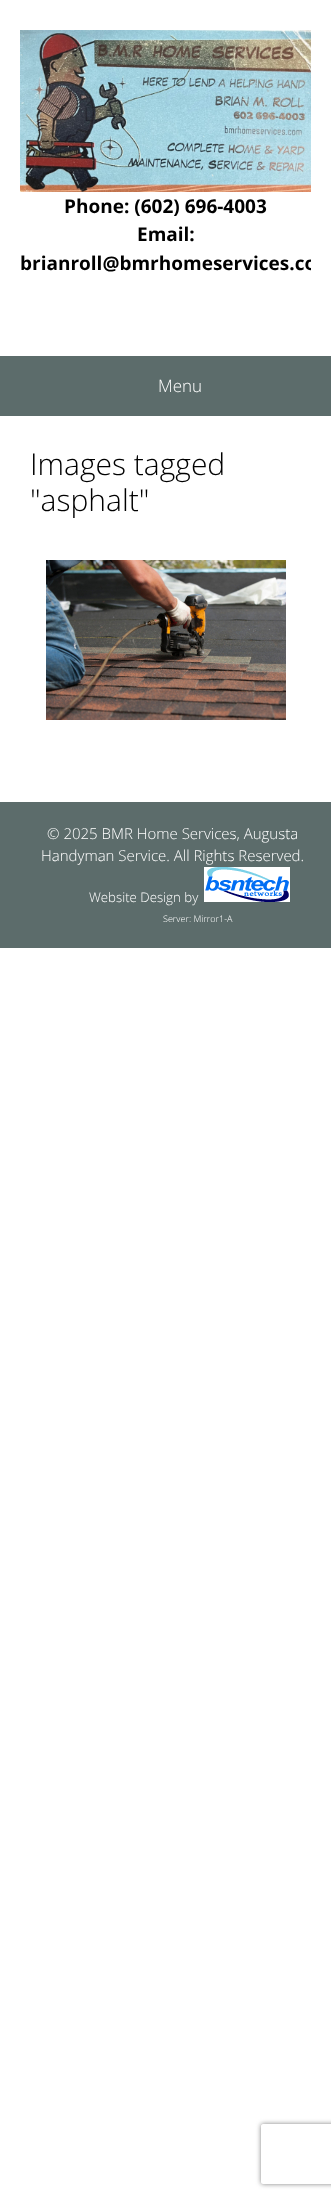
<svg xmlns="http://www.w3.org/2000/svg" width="331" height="2198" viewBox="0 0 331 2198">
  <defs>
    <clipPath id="clip1"><rect x="20" y="192" width="291" height="114"/></clipPath>
    <clipPath id="clip2"><path d="M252 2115H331V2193H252ZM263 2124H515C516 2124 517 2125 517 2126V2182C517 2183 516 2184 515 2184H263C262 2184 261 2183 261 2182V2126C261 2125 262 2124 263 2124Z" clip-rule="evenodd"/></clipPath>
  </defs>
  <rect width="100%" height="100%" fill="rgb(255,255,255)"/>
  <image x="20" y="30" width="291" height="162" href="pic1.png"/>
  <g font-family="Open Sans" font-size="19" font-weight="bold" fill="rgb(0,0,0)">
    <text x="64" y="213">Phone: (602) 696-4003</text>
    <text x="137" y="241">Email:</text>
  </g>
  <g clip-path="url(#clip1)">
    <text x="20" y="270" font-family="Open Sans" font-size="19" font-weight="bold" fill="rgb(0,0,0)">brianroll@bmrhomeservices.co</text>
  </g>
  <rect x="0" y="356" width="331" height="60" fill="rgb(92,108,107)"/>
  <text x="158" y="392" font-family="Open Sans" font-size="17" font-weight="300" fill="rgb(255,255,255)">Menu</text>
  <g font-family="Open Sans" font-size="30" font-weight="300" fill="rgb(0,0,0)">
    <text>
      <tspan x="30" y="475">Images tagged</tspan>
      <tspan x="30" y="511">"asphalt"</tspan>
    </text>
  </g>
  <image x="46" y="560" width="240" height="160" href="pic2.png"/>
  <rect x="0" y="802" width="331" height="146" fill="rgb(92,108,107)"/>
  <g font-family="Open Sans" font-size="15" font-weight="300" fill="rgb(255,255,255)">
    <text x="47" y="839">© 2025 BMR Home Services, Augusta</text>
    <text x="41" y="861">Handyman Service. All Rights Reserved.</text>
  </g>
  <text x="89" y="902" font-family="Open Sans" font-size="13.25" font-weight="300" fill="rgb(255,255,255)">Website Design by</text>
  <image x="204" y="867" width="86" height="35" href="pic3.png"/>
  <text x="163" y="922" font-family="Open Sans" font-size="9" font-weight="300" fill="rgb(255,255,255)">Server: Mirror1-A</text>
  <g clip-path="url(#clip2)">
    <rect x="261" y="2124" width="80" height="60" rx="2" fill="rgb(128,128,128)" filter="blur(2.5px)"/>
  </g>
</svg>
